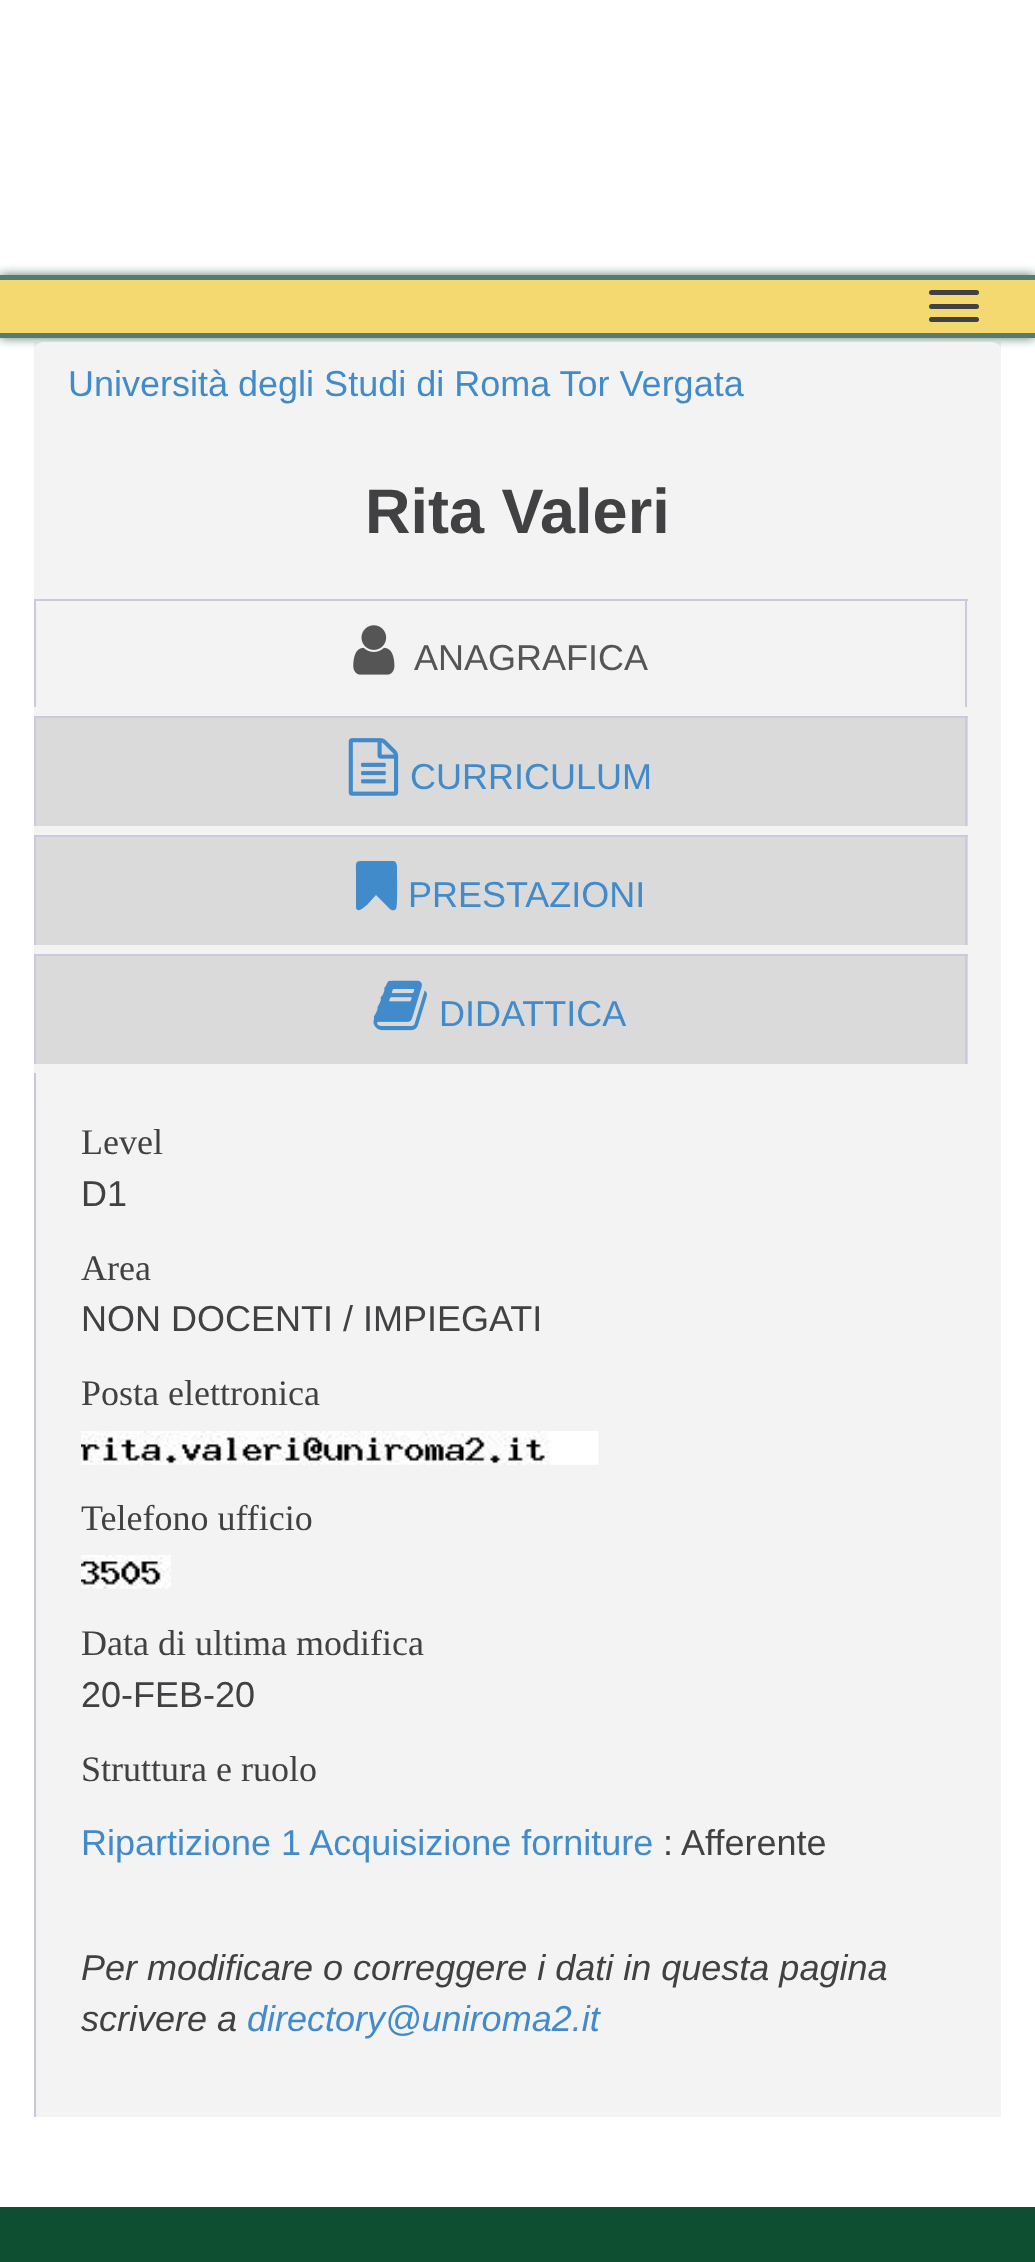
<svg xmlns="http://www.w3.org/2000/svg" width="1035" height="2262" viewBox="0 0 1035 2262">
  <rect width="100%" height="100%" fill="rgb(255,255,255)"/>
  <rect x="34" y="342" width="967" height="1775" fill="rgb(243,243,243)"/>
  <rect x="0" y="275" width="1035" height="63" fill="rgb(87,124,109)" filter="blur(5.5px)"/>
  <rect x="0" y="280" width="1035" height="53" fill="rgb(244,217,113)"/>
  <rect x="0" y="275" width="1035" height="5" fill="rgb(87,124,109)"/>
  <rect x="0" y="333" width="1035" height="5" fill="rgb(87,124,109)"/>
  <rect x="929" y="290" width="50" height="5" rx="2.5" fill="rgb(65,64,66)"/>
  <rect x="929" y="304" width="50" height="5" rx="2.5" fill="rgb(65,64,66)"/>
  <rect x="929" y="317" width="50" height="5" rx="2.5" fill="rgb(65,64,66)"/>
  <rect x="34" y="342" width="967" height="88" rx="9" fill="rgb(243,243,243)"/>
  <text x="68" y="396" font-family="Liberation Sans" font-size="36" fill="rgb(66,139,202)">Università degli Studi di Roma Tor Vergata</text>
  <text x="365" y="533" font-family="Liberation Sans" font-size="63" font-weight="bold" fill="rgb(65,64,66)">Rita Valeri</text>
  <rect x="34" y="599" width="934" height="2" fill="rgb(207,199,221)"/>
  <rect x="965" y="599" width="2" height="108" fill="rgb(207,199,221)"/>
  <rect x="34" y="599" width="2" height="108" fill="rgb(207,199,221)"/>
  <image x="353" y="625" width="42" height="50" href="pic1.png"/>
  <text x="414" y="670" font-family="Liberation Sans" font-size="36" fill="rgb(85,85,85)">ANAGRAFICA</text>
  <rect x="36" y="718" width="932" height="108" fill="rgb(218,218,218)"/>
  <rect x="34" y="716" width="934" height="2" fill="rgb(207,199,221)"/>
  <rect x="965" y="716" width="2" height="110" fill="rgb(207,199,221)"/>
  <rect x="34" y="716" width="2" height="110" fill="rgb(207,199,221)"/>
  <image x="348" y="738" width="51" height="58" href="pic2.png"/>
  <text x="410" y="789" font-family="Liberation Sans" font-size="36" fill="rgb(66,139,202)">CURRICULUM</text>
  <rect x="36" y="837" width="932" height="108" fill="rgb(218,218,218)"/>
  <rect x="34" y="835" width="934" height="2" fill="rgb(207,199,221)"/>
  <rect x="965" y="835" width="2" height="110" fill="rgb(207,199,221)"/>
  <rect x="34" y="835" width="2" height="110" fill="rgb(207,199,221)"/>
  <path d="M393 861H365C355 861 356 861 356 872V908C358 914 365 906 367 905L376 895L386 905C388 907 392 913 396 909C398 907 397 877 397 872C397 869 398 861 393 861Z" fill="rgb(66,139,202)"/>
  <text x="408" y="907" font-family="Liberation Sans" font-size="36" fill="rgb(66,139,202)">PRESTAZIONI</text>
  <rect x="36" y="956" width="932" height="108" fill="rgb(218,218,218)"/>
  <rect x="34" y="954" width="934" height="2" fill="rgb(207,199,221)"/>
  <rect x="965" y="954" width="2" height="110" fill="rgb(207,199,221)"/>
  <rect x="34" y="954" width="2" height="110" fill="rgb(207,199,221)"/>
  <image x="373" y="980" width="54" height="51" href="pic3.png"/>
  <text x="439" y="1026" font-family="Liberation Sans" font-size="36" fill="rgb(66,139,202)">DIDATTICA</text>
  <rect x="34" y="1073" width="2" height="1044" fill="rgb(204,197,219)"/>
  <text x="81" y="1154" font-family="Liberation Serif" font-size="36" fill="rgb(65,64,66)">Level</text>
  <text x="81" y="1206" font-family="Liberation Sans" font-size="36" fill="rgb(65,64,66)">D1</text>
  <text x="81" y="1280" font-family="Liberation Serif" font-size="36" fill="rgb(65,64,66)">Area</text>
  <text x="81" y="1331" font-family="Liberation Sans" font-size="36" fill="rgb(65,64,66)">NON DOCENTI / IMPIEGATI</text>
  <text x="81" y="1405" font-family="Liberation Serif" font-size="36" fill="rgb(65,64,66)">Posta elettronica</text>
  <image x="81" y="1431" width="518" height="34" href="pic4.png"/>
  <text x="81" y="1530" font-family="Liberation Serif" font-size="36" fill="rgb(65,64,66)">Telefono ufficio</text>
  <image x="81" y="1555" width="90" height="34" href="pic5.png"/>
  <text x="81" y="1655" font-family="Liberation Serif" font-size="36" fill="rgb(65,64,66)">Data di ultima modifica</text>
  <text x="81" y="1707" font-family="Liberation Sans" font-size="36" fill="rgb(65,64,66)">20-FEB-20</text>
  <text x="81" y="1781" font-family="Liberation Serif" font-size="36" fill="rgb(65,64,66)">Struttura e ruolo</text>
  <text x="81" y="1855" font-family="Liberation Sans" font-size="36" fill="rgb(66,139,202)">Ripartizione 1 Acquisizione forniture</text>
  <text x="663" y="1855" font-family="Liberation Sans" font-size="36" fill="rgb(65,64,66)">: Afferente</text>
  <g font-family="Liberation Sans" font-size="36" font-style="italic" fill="rgb(65,64,66)">
    <text>
      <tspan x="81" y="1980">Per modificare o correggere i dati in questa pagina</tspan>
      <tspan x="81" y="2031">scrivere a</tspan>
    </text>
  </g>
  <text x="247" y="2031" font-family="Liberation Sans" font-size="36" font-style="italic" fill="rgb(66,139,202)">directory@uniroma2.it</text>
  <rect x="0" y="2207" width="1035" height="55" fill="rgb(15,79,49)"/>
</svg>
